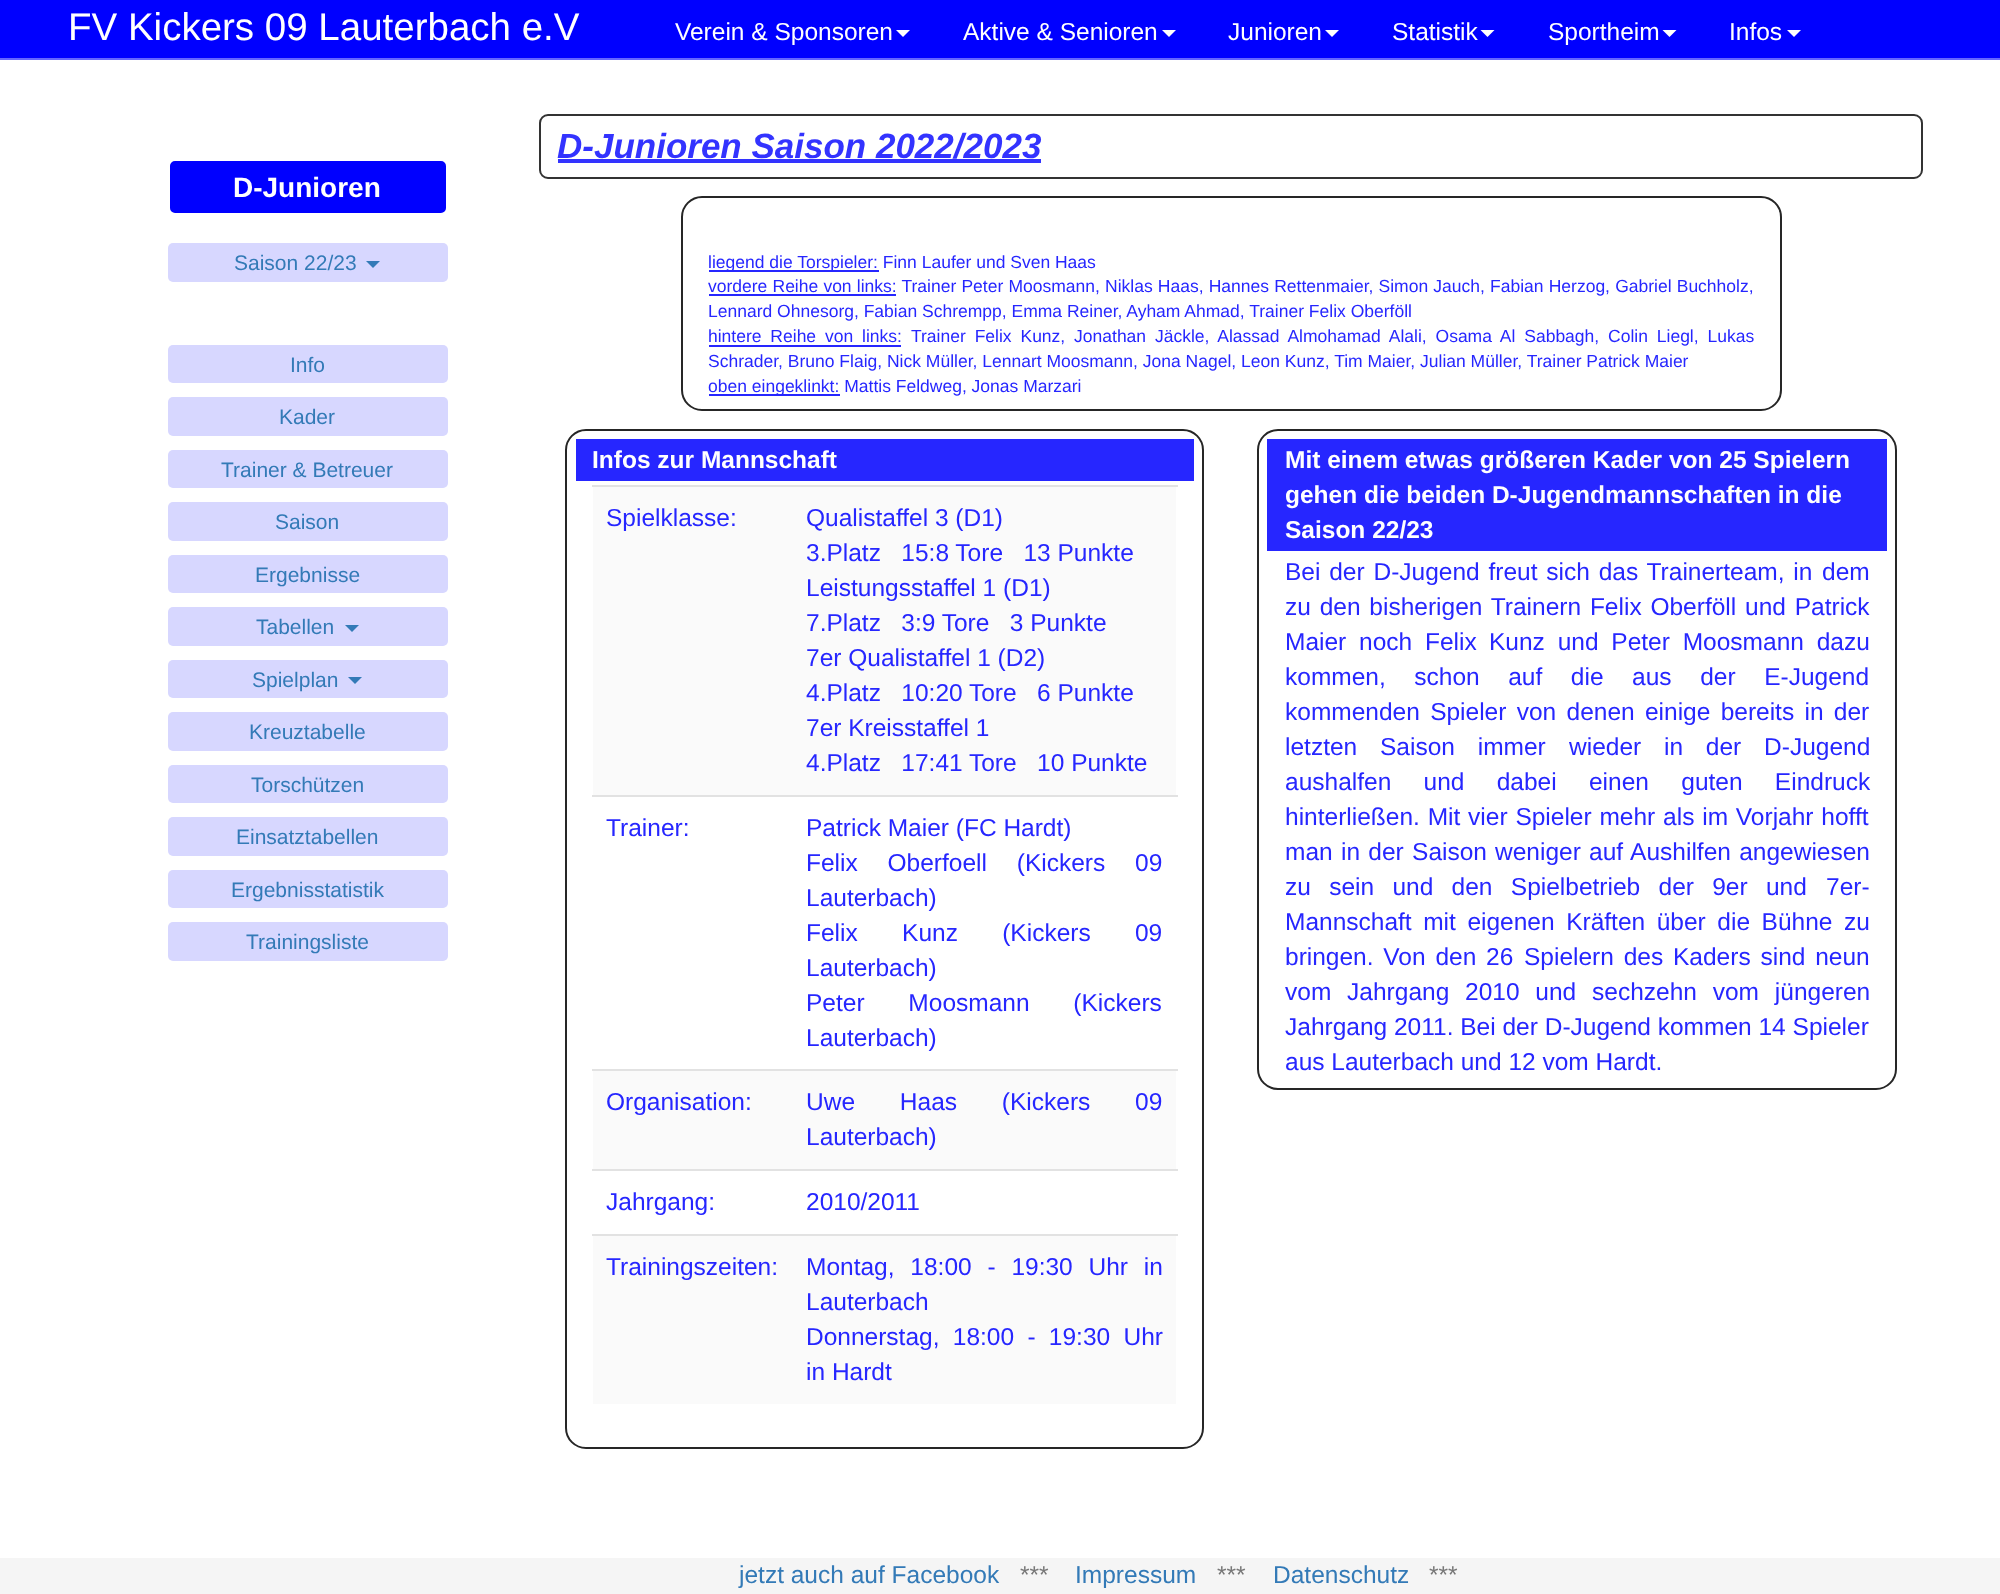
<svg xmlns="http://www.w3.org/2000/svg" width="2000" height="1594" viewBox="0 0 2000 1594">
  <rect width="100%" height="100%" fill="rgb(255,255,255)"/>
  <rect x="0" y="0" width="2000" height="58" fill="rgb(0,0,255)"/>
  <rect x="0" y="58" width="2000" height="2" fill="rgb(102,102,255)"/>
  <text x="68" y="40" font-family="Liberation Sans" font-size="38.5" fill="rgb(255,255,255)">FV Kickers 09 Lauterbach e.V</text>
  <text x="675" y="40" font-family="Liberation Sans" font-size="24.5" fill="rgb(255,255,255)">Verein &amp; Sponsoren</text>
  <path d="M896 30H910L903 37Z" fill="rgb(255,255,255)"/>
  <text x="963" y="40" font-family="Liberation Sans" font-size="24.5" fill="rgb(255,255,255)">Aktive &amp; Senioren</text>
  <path d="M1162 30H1176L1169 37Z" fill="rgb(255,255,255)"/>
  <text x="1228" y="40" font-family="Liberation Sans" font-size="24.5" fill="rgb(255,255,255)">Junioren</text>
  <path d="M1325 30H1339L1332 37Z" fill="rgb(255,255,255)"/>
  <text x="1392" y="40" font-family="Liberation Sans" font-size="24.5" fill="rgb(255,255,255)">Statistik</text>
  <path d="M1480.5 30H1494.5L1487.5 37Z" fill="rgb(255,255,255)"/>
  <text x="1548" y="40" font-family="Liberation Sans" font-size="24.5" fill="rgb(255,255,255)">Sportheim</text>
  <path d="M1662.5 30H1676.5L1669.5 37Z" fill="rgb(255,255,255)"/>
  <text x="1729" y="40" font-family="Liberation Sans" font-size="24.5" fill="rgb(255,255,255)">Infos</text>
  <path d="M1787 30H1801L1794 37Z" fill="rgb(255,255,255)"/>
  <rect x="169" y="160" width="278" height="54" rx="6" fill="rgb(0,0,255)" stroke="rgb(255,255,255)" stroke-width="2"/>
  <text x="233" y="197" font-family="Liberation Sans" font-size="28" font-weight="bold" fill="rgb(255,255,255)">D-Junioren</text>
  <rect x="168" y="243" width="280" height="39" rx="5" fill="rgb(215,215,255)"/>
  <text x="234" y="270" font-family="Liberation Sans" font-size="21" fill="rgb(51,122,183)">Saison 22/23</text>
  <path d="M366 261H380L373 268Z" fill="rgb(51,122,183)"/>
  <rect x="168" y="345" width="280" height="38" rx="5" fill="rgb(215,215,255)"/>
  <text x="290" y="372" font-family="Liberation Sans" font-size="21" fill="rgb(51,122,183)">Info</text>
  <rect x="168" y="397" width="280" height="39" rx="5" fill="rgb(215,215,255)"/>
  <text x="279" y="424" font-family="Liberation Sans" font-size="21" fill="rgb(51,122,183)">Kader</text>
  <rect x="168" y="450" width="280" height="38" rx="5" fill="rgb(215,215,255)"/>
  <text x="221" y="477" font-family="Liberation Sans" font-size="21" fill="rgb(51,122,183)">Trainer &amp; Betreuer</text>
  <rect x="168" y="502" width="280" height="39" rx="5" fill="rgb(215,215,255)"/>
  <text x="275" y="529" font-family="Liberation Sans" font-size="21" fill="rgb(51,122,183)">Saison</text>
  <rect x="168" y="555" width="280" height="38" rx="5" fill="rgb(215,215,255)"/>
  <text x="255" y="582" font-family="Liberation Sans" font-size="21" fill="rgb(51,122,183)">Ergebnisse</text>
  <rect x="168" y="607" width="280" height="39" rx="5" fill="rgb(215,215,255)"/>
  <text x="256" y="634" font-family="Liberation Sans" font-size="21" fill="rgb(51,122,183)">Tabellen</text>
  <path d="M345 625H359L352 632Z" fill="rgb(51,122,183)"/>
  <rect x="168" y="660" width="280" height="38" rx="5" fill="rgb(215,215,255)"/>
  <text x="252" y="687" font-family="Liberation Sans" font-size="21" fill="rgb(51,122,183)">Spielplan</text>
  <path d="M348 677H362L355 684Z" fill="rgb(51,122,183)"/>
  <rect x="168" y="712" width="280" height="39" rx="5" fill="rgb(215,215,255)"/>
  <text x="249" y="739" font-family="Liberation Sans" font-size="21" fill="rgb(51,122,183)">Kreuztabelle</text>
  <rect x="168" y="765" width="280" height="38" rx="5" fill="rgb(215,215,255)"/>
  <text x="251" y="792" font-family="Liberation Sans" font-size="21" fill="rgb(51,122,183)">Torschützen</text>
  <rect x="168" y="817" width="280" height="39" rx="5" fill="rgb(215,215,255)"/>
  <text x="236" y="844" font-family="Liberation Sans" font-size="21" fill="rgb(51,122,183)">Einsatztabellen</text>
  <rect x="168" y="870" width="280" height="38" rx="5" fill="rgb(215,215,255)"/>
  <text x="231" y="897" font-family="Liberation Sans" font-size="21" fill="rgb(51,122,183)">Ergebnisstatistik</text>
  <rect x="168" y="922" width="280" height="39" rx="5" fill="rgb(215,215,255)"/>
  <text x="246" y="949" font-family="Liberation Sans" font-size="21" fill="rgb(51,122,183)">Trainingsliste</text>
  <rect x="540" y="115" width="1382" height="63" rx="8" fill="none" stroke="rgb(51,51,51)" stroke-width="2"/>
  <text x="557" y="158" font-family="Liberation Sans" font-size="35" font-weight="bold" font-style="italic" fill="rgb(51,51,255)">D-Junioren Saison 2022/2023</text>
  <rect x="558" y="159" width="483" height="4" fill="rgb(51,51,255)"/>
  <rect x="682" y="197" width="1099" height="213" rx="20" fill="none" stroke="rgb(38,38,38)" stroke-width="2"/>
  <rect x="709" y="270" width="170" height="2" fill="rgb(38,38,255)"/>
  <text x="708" y="268" font-family="Liberation Sans" font-size="17.5" fill="rgb(38,38,255)">liegend die Torspieler: Finn Laufer und Sven Haas</text>
  <rect x="709" y="294" width="187" height="2" fill="rgb(38,38,255)"/>
  <g font-family="Liberation Sans" font-size="17.5" fill="rgb(38,38,255)">
    <text>
      <tspan x="708" y="292" word-spacing="0.3">vordere Reihe von links: Trainer Peter Moosmann, Niklas Haas, Hannes Rettenmaier, Simon Jauch, Fabian Herzog, Gabriel Buchholz,</tspan>
      <tspan x="708" y="317">Lennard Ohnesorg, Fabian Schrempp, Emma Reiner, Ayham Ahmad, Trainer Felix Oberföll</tspan>
      <tspan x="708" y="342" word-spacing="4">hintere Reihe von links:</tspan>
    </text>
  </g>
  <rect x="709" y="345" width="192" height="2" fill="rgb(38,38,255)"/>
  <g font-family="Liberation Sans" font-size="17.5" fill="rgb(38,38,255)">
    <text x="911" y="342" word-spacing="4">Trainer Felix Kunz, Jonathan Jäckle, Alassad Almohamad Alali, Osama Al Sabbagh, Colin Liegl, Lukas</text>
    <text x="708" y="367">Schrader, Bruno Flaig, Nick Müller, Lennart Moosmann, Jona Nagel, Leon Kunz, Tim Maier, Julian Müller, Trainer Patrick Maier</text>
  </g>
  <rect x="709" y="394" width="131" height="2" fill="rgb(38,38,255)"/>
  <text x="708" y="392" font-family="Liberation Sans" font-size="17.5" fill="rgb(38,38,255)">oben eingeklinkt: Mattis Feldweg, Jonas Marzari</text>
  <rect x="566" y="430" width="637" height="1018" rx="20" fill="none" stroke="rgb(38,38,38)" stroke-width="2"/>
  <rect x="576" y="439" width="618" height="42" fill="rgb(38,38,255)"/>
  <text x="592" y="468" font-family="Liberation Sans" font-size="24.5" font-weight="bold" fill="rgb(255,255,255)">Infos zur Mannschaft</text>
  <rect x="593" y="487" width="583" height="308" fill="rgb(250,250,250)"/>
  <text x="606" y="526" font-family="Liberation Sans" font-size="24.5" fill="rgb(38,38,255)">Spielklasse:</text>
  <rect x="592" y="485" width="586" height="2" fill="rgb(226,226,226)"/>
  <g font-family="Liberation Sans" font-size="24.5" fill="rgb(38,38,255)">
    <text xml:space="preserve"><tspan x="806" y="526">Qualistaffel 3 (D1)</tspan><tspan x="806" y="561">3.Platz   15:8 Tore   13 Punkte</tspan><tspan x="806" y="596">Leistungsstaffel 1 (D1)</tspan><tspan x="806" y="631">7.Platz   3:9 Tore   3 Punkte</tspan><tspan x="806" y="666">7er Qualistaffel 1 (D2)</tspan><tspan x="806" y="701">4.Platz   10:20 Tore   6 Punkte</tspan><tspan x="806" y="736">7er Kreisstaffel 1</tspan><tspan x="806" y="771">4.Platz   17:41 Tore   10 Punkte</tspan></text>
    <text x="606" y="836">Trainer:</text>
  </g>
  <rect x="592" y="795" width="586" height="2" fill="rgb(226,226,226)"/>
  <g font-family="Liberation Sans" font-size="24.5" fill="rgb(38,38,255)">
    <text>
      <tspan x="806" y="836">Patrick Maier (FC Hardt)</tspan>
      <tspan x="806" y="871" word-spacing="23">Felix Oberfoell (Kickers 09</tspan>
      <tspan x="806" y="906">Lauterbach)</tspan>
      <tspan x="806" y="941" word-spacing="37.5">Felix Kunz (Kickers 09</tspan>
      <tspan x="806" y="976">Lauterbach)</tspan>
      <tspan x="806" y="1011" word-spacing="37">Peter Moosmann (Kickers</tspan>
      <tspan x="806" y="1046">Lauterbach)</tspan>
    </text>
  </g>
  <rect x="593" y="1071" width="583" height="98" fill="rgb(250,250,250)"/>
  <text x="606" y="1110" font-family="Liberation Sans" font-size="24.5" fill="rgb(38,38,255)">Organisation:</text>
  <rect x="592" y="1069" width="586" height="2" fill="rgb(226,226,226)"/>
  <g font-family="Liberation Sans" font-size="24.5" fill="rgb(38,38,255)">
    <text>
      <tspan x="806" y="1110" word-spacing="38">Uwe Haas (Kickers 09</tspan>
      <tspan x="806" y="1145">Lauterbach)</tspan>
    </text>
    <text x="606" y="1210">Jahrgang:</text>
  </g>
  <rect x="592" y="1169" width="586" height="2" fill="rgb(226,226,226)"/>
  <text x="806" y="1210" font-family="Liberation Sans" font-size="24.5" fill="rgb(38,38,255)">2010/2011</text>
  <rect x="593" y="1236" width="583" height="168" fill="rgb(250,250,250)"/>
  <text x="606" y="1275" font-family="Liberation Sans" font-size="24.5" fill="rgb(38,38,255)">Trainingszeiten:</text>
  <rect x="592" y="1234" width="586" height="2" fill="rgb(226,226,226)"/>
  <g font-family="Liberation Sans" font-size="24.5" fill="rgb(38,38,255)">
    <text>
      <tspan x="806" y="1275" word-spacing="9">Montag, 18:00 - 19:30 Uhr in</tspan>
      <tspan x="806" y="1310">Lauterbach</tspan>
      <tspan x="806" y="1345" word-spacing="6.5">Donnerstag, 18:00 - 19:30 Uhr</tspan>
      <tspan x="806" y="1380">in Hardt</tspan>
    </text>
  </g>
  <rect x="1258" y="430" width="638" height="659" rx="20" fill="none" stroke="rgb(38,38,38)" stroke-width="2"/>
  <rect x="1267" y="439" width="620" height="112" fill="rgb(38,38,255)"/>
  <g font-family="Liberation Sans" font-size="24.5" font-weight="bold" fill="rgb(255,255,255)">
    <text>
      <tspan x="1285" y="468">Mit einem etwas größeren Kader von 25 Spielern</tspan>
      <tspan x="1285" y="503">gehen die beiden D-Jugendmannschaften in die</tspan>
      <tspan x="1285" y="538">Saison 22/23</tspan>
    </text>
  </g>
  <g font-family="Liberation Sans" font-size="24.5" fill="rgb(38,38,255)">
    <text x="1285" y="580" word-spacing="2">Bei der D-Jugend freut sich das Trainerteam, in</text>
    <text x="1822" y="580">dem</text>
    <text>
      <tspan x="1285" y="615" word-spacing="2">zu den bisherigen Trainern Felix Oberföll und Patrick</tspan>
      <tspan x="1285" y="650" word-spacing="6">Maier noch Felix</tspan>
    </text>
    <text x="1489" y="650" word-spacing="6">Kunz und Peter Moosmann dazu</text>
    <text>
      <tspan x="1285" y="685" word-spacing="21.75">kommen, schon auf die aus der E-Jugend</tspan>
      <tspan x="1285" y="720" word-spacing="3.5">kommenden Spieler von denen einige bereits in der</tspan>
      <tspan x="1285" y="755" word-spacing="16">letzten Saison immer</tspan>
    </text>
    <text x="1569" y="755" word-spacing="16">wieder in der D-Jugend</text>
    <text>
      <tspan x="1285" y="790" word-spacing="25.5">aushalfen und dabei einen guten Eindruck</tspan>
      <tspan x="1285" y="825" word-spacing="1">hinterließen. Mit vier Spieler mehr als im Vorjahr hofft</tspan>
      <tspan x="1285" y="860" word-spacing="1.5">man in der Saison</tspan>
    </text>
    <text x="1495" y="860" word-spacing="1.5">weniger auf Aushilfen angewiesen</text>
    <text x="1285" y="895" word-spacing="11.5">zu sein und den Spielbetrieb der 9er und</text>
    <text x="1826" y="895">7er-</text>
    <text>
      <tspan x="1285" y="930" word-spacing="4.75">Mannschaft mit eigenen Kräften über die Bühne zu</tspan>
      <tspan x="1285" y="965" word-spacing="3">bringen. Von den 26</tspan>
    </text>
    <text x="1524" y="965" word-spacing="3">Spielern des Kaders sind neun</text>
    <text>
      <tspan x="1285" y="1000" word-spacing="9">vom Jahrgang 2010 und sechzehn vom jüngeren</tspan>
      <tspan x="1285" y="1035">Jahrgang 2011. Bei der D-Jugend kommen 14 Spieler</tspan>
      <tspan x="1285" y="1070">aus Lauterbach und 12 vom Hardt.</tspan>
    </text>
  </g>
  <rect x="0" y="1558" width="2000" height="36" fill="rgb(245,245,245)"/>
  <text x="739" y="1583" font-family="Liberation Sans" font-size="24.5" fill="rgb(51,122,183)">jetzt auch auf Facebook</text>
  <text x="1020" y="1583" font-family="Liberation Sans" font-size="24.5" fill="rgb(119,119,119)">***</text>
  <text x="1075" y="1583" font-family="Liberation Sans" font-size="24.5" fill="rgb(51,122,183)">Impressum</text>
  <text x="1217" y="1583" font-family="Liberation Sans" font-size="24.5" fill="rgb(119,119,119)">***</text>
  <text x="1273" y="1583" font-family="Liberation Sans" font-size="24.5" fill="rgb(51,122,183)">Datenschutz</text>
  <text x="1429" y="1583" font-family="Liberation Sans" font-size="24.5" fill="rgb(119,119,119)">***</text>
</svg>
